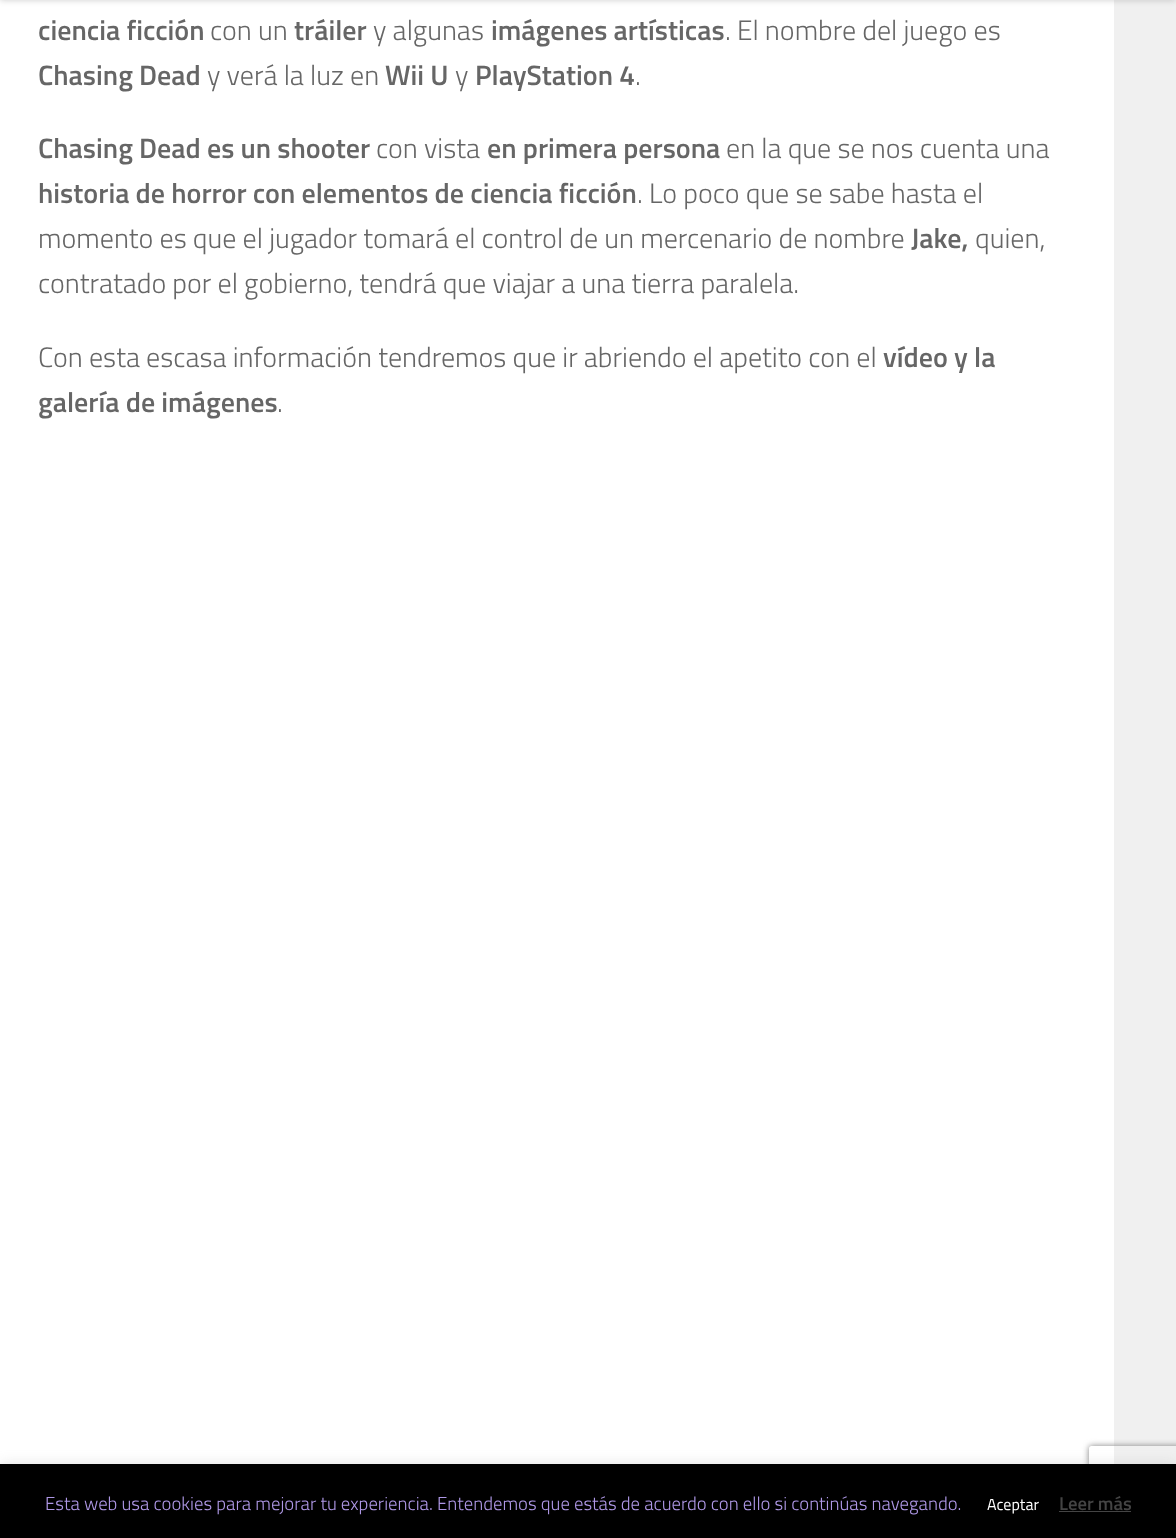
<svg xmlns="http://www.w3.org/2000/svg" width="1176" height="1538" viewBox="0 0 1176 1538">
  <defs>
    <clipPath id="clip1"><path d="M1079 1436H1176V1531H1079ZM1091.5 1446H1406.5C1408 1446 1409 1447 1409 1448.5V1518.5C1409 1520 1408 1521 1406.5 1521H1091.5C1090 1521 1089 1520 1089 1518.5V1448.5C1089 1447 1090 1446 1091.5 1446Z" clip-rule="evenodd"/></clipPath>
  </defs>
  <rect width="100%" height="100%" fill="rgb(255,255,255)"/>
  <rect x="1114" y="1" width="62" height="1463" fill="rgb(240,240,240)"/>
  <rect x="1114" y="0" width="62" height="1" fill="rgb(242,242,242)"/>
  <rect x="0" y="-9" width="1176" height="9" fill="rgba(0,0,0,0.2)" filter="blur(3px)"/>
  <text x="38" y="40" font-family="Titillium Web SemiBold" font-size="28.1" font-weight="600" fill="rgb(102,102,102)">ciencia ficción</text>
  <text x="210" y="40" font-family="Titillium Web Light" font-size="28.1" font-weight="300" fill="rgb(102,102,102)">con un</text>
  <text x="294" y="40" font-family="Titillium Web SemiBold" font-size="28.1" font-weight="600" fill="rgb(102,102,102)">tráiler</text>
  <text x="373" y="40" font-family="Titillium Web Light" font-size="28.1" font-weight="300" fill="rgb(102,102,102)">y algunas</text>
  <text x="491" y="40" font-family="Titillium Web SemiBold" font-size="28.1" font-weight="600" fill="rgb(102,102,102)">imágenes artísticas</text>
  <text x="725" y="40" font-family="Titillium Web Light" font-size="28.1" font-weight="300" fill="rgb(102,102,102)">. El nombre del juego es</text>
  <text x="38" y="85" font-family="Titillium Web SemiBold" font-size="28.1" font-weight="600" fill="rgb(102,102,102)">Chasing Dead</text>
  <text x="207" y="85" font-family="Titillium Web Light" font-size="28.1" font-weight="300" fill="rgb(102,102,102)">y verá la luz en</text>
  <text x="385" y="85" font-family="Titillium Web SemiBold" font-size="28.1" font-weight="600" fill="rgb(102,102,102)">Wii U</text>
  <text x="455" y="85" font-family="Titillium Web Light" font-size="28.1" font-weight="300" fill="rgb(102,102,102)">y</text>
  <text x="475" y="85" font-family="Titillium Web SemiBold" font-size="28.1" font-weight="600" fill="rgb(102,102,102)">PlayStation 4</text>
  <text x="635" y="85" font-family="Titillium Web Light" font-size="28.1" font-weight="300" fill="rgb(102,102,102)">.</text>
  <text x="38" y="158" font-family="Titillium Web SemiBold" font-size="28.1" font-weight="600" fill="rgb(102,102,102)">Chasing Dead es un shooter</text>
  <text x="376" y="158" font-family="Titillium Web Light" font-size="28.1" font-weight="300" fill="rgb(102,102,102)">con vista</text>
  <text x="487" y="158" font-family="Titillium Web SemiBold" font-size="28.1" font-weight="600" fill="rgb(102,102,102)">en primera persona</text>
  <text x="726" y="158" font-family="Titillium Web Light" font-size="28.1" font-weight="300" fill="rgb(102,102,102)">en la que se nos cuenta una</text>
  <text x="38" y="203" font-family="Titillium Web SemiBold" font-size="28.1" font-weight="600" fill="rgb(102,102,102)">historia de horror con elementos de ciencia ficción</text>
  <g font-family="Titillium Web Light" font-size="28.1" font-weight="300" fill="rgb(102,102,102)">
    <text x="637" y="203">. Lo poco que se sabe hasta el</text>
    <text x="38" y="248">momento es que el jugador tomará el control de un mercenario de nombre</text>
  </g>
  <text x="911" y="248" font-family="Titillium Web SemiBold" font-size="28.1" font-weight="600" fill="rgb(102,102,102)">Jake,</text>
  <g font-family="Titillium Web Light" font-size="28.1" font-weight="300" fill="rgb(102,102,102)">
    <text x="975" y="248">quien,</text>
    <text x="38" y="293">contratado por el gobierno, tendrá que viajar a una tierra paralela.</text>
    <text x="38" y="367">Con esta escasa información tendremos que ir abriendo el apetito con el</text>
  </g>
  <g font-family="Titillium Web SemiBold" font-size="28.1" font-weight="600" fill="rgb(102,102,102)">
    <text x="883" y="367">vídeo y la</text>
    <text x="38" y="412">galería de imágenes</text>
  </g>
  <text x="277" y="412" font-family="Titillium Web Light" font-size="28.1" font-weight="300" fill="rgb(102,102,102)">.</text>
  <g clip-path="url(#clip1)">
    <rect x="1089" y="1446" width="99" height="75" rx="2.5" fill="rgb(128,128,128)" filter="blur(3px)"/>
  </g>
  <rect x="0" y="1463" width="1176" height="75" fill="rgba(172,171,171,0.3)" filter="blur(6px)"/>
  <rect x="0" y="1464" width="1176" height="74" fill="rgb(0,0,0)"/>
  <text x="45" y="1510" font-family="Titillium Web Light" font-size="18.75" font-weight="300" fill="rgb(174,151,229)">Esta web usa cookies para mejorar tu experiencia. Entendemos que estás de acuerdo con ello si continúas navegando.</text>
  <text x="987" y="1510" font-family="Titillium Web" font-size="16" fill="rgb(255,255,255)">Aceptar</text>
  <text x="1059" y="1510" font-family="Titillium Web SemiBold" font-size="18.75" font-weight="600" fill="rgb(68,68,68)">Leer más</text>
  <rect x="1059" y="1511" width="72" height="1" fill="rgb(68,68,68)"/>
</svg>
